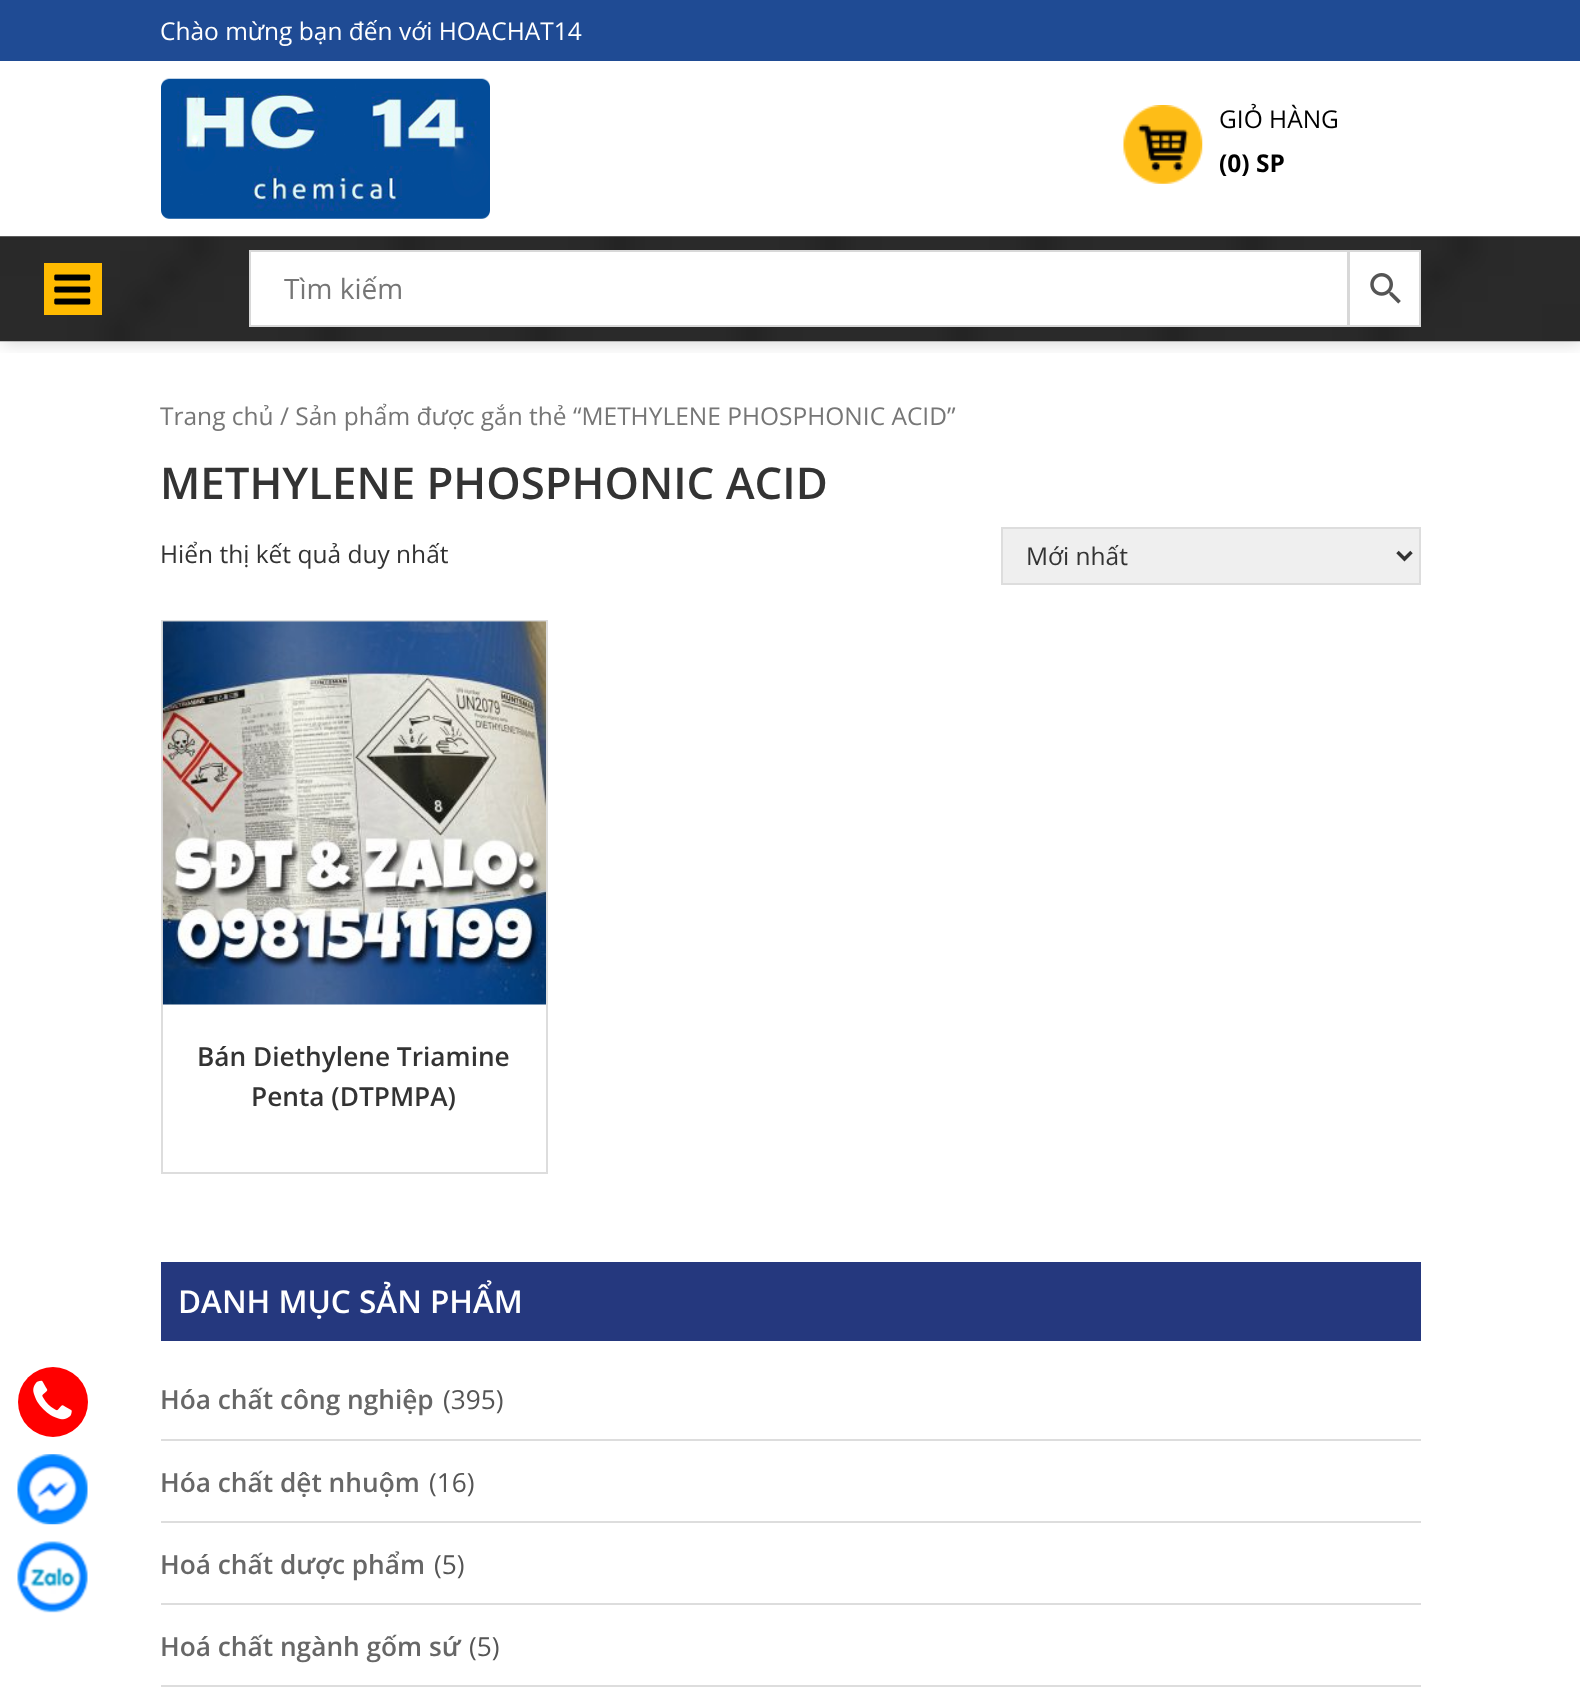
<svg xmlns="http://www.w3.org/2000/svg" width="1580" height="1699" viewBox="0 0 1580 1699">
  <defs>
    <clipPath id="clip1"><rect x="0" y="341" width="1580" height="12"/></clipPath>
  </defs>
  <rect width="100%" height="100%" fill="rgb(255,255,255)"/>
  <g clip-path="url(#clip1)">
    <rect x="2" y="2" width="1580" height="341" fill="rgba(0,0,0,0.16)" filter="blur(9px)"/>
  </g>
  <rect x="0" y="0" width="1580" height="61" fill="rgb(31,75,148)"/>
  <text x="160" y="40" font-family="Open Sans" font-size="24.5" fill="rgb(255,255,255)">Chào mừng bạn đến với HOACHAT14</text>
  <image x="161" y="78" width="329" height="141" href="pic1.png"/>
  <image x="1123" y="105" width="80" height="79" href="pic2.png"/>
  <text x="1219" y="128" font-family="Open Sans" font-size="24.5" fill="rgb(0,0,0)">GIỎ HÀNG</text>
  <text x="1219" y="172" font-family="Open Sans" font-size="24.5" font-weight="bold" fill="rgb(0,0,0)">(0) SP</text>
  <image x="0" y="236" width="1580" height="106" href="pic3.png"/>
  <rect x="44" y="263" width="58" height="52" fill="rgb(255,186,0)"/>
  <image x="54" y="274" width="37" height="31" href="pic4.png"/>
  <rect x="1349" y="251" width="71" height="75" fill="rgb(255,255,255)" stroke="rgb(216,216,216)" stroke-width="2"/>
  <rect x="250" y="251" width="1098" height="75" fill="rgb(255,255,255)" stroke="rgb(216,216,216)" stroke-width="2"/>
  <text x="284" y="299" font-family="Open Sans" font-size="28" fill="rgb(118,118,118)">Tìm kiếm</text>
  <image x="1370" y="273" width="31" height="31" href="pic5.png"/>
  <circle cx="53" cy="1402" r="35" fill="rgb(255,0,0)"/>
  <image x="33" y="1380" width="39" height="40" href="pic6.png"/>
  <image x="17" y="1454" width="71" height="71" href="pic7.png"/>
  <image x="17" y="1541" width="71" height="72" href="pic8.png"/>
  <text x="160" y="425" font-family="Open Sans" font-size="24.5" fill="rgb(118,118,118)">Trang chủ / Sản phẩm được gắn thẻ “METHYLENE PHOSPHONIC ACID”</text>
  <text x="160" y="499" font-family="Open Sans" font-size="43.75" font-weight="600" fill="rgb(51,51,51)">METHYLENE PHOSPHONIC ACID</text>
  <text x="160" y="563" font-family="Open Sans" font-size="24.5" fill="rgb(51,51,51)">Hiển thị kết quả duy nhất</text>
  <rect x="1002" y="528" width="418" height="56" fill="rgb(239,239,239)" stroke="rgb(221,221,221)" stroke-width="2"/>
  <path d="M1397.5 552L1404.5 559L1411.5 552" fill="none" stroke="rgb(51,51,51)" stroke-width="3.5"/>
  <text x="1026" y="565" font-family="Open Sans" font-size="24.5" fill="rgb(51,51,51)">Mới nhất</text>
  <rect x="162" y="621" width="385" height="552" fill="none" stroke="rgb(221,221,221)" stroke-width="2"/>
  <image x="162" y="621" width="384" height="384" href="pic9.png"/>
  <g font-family="Open Sans" font-size="26.25" font-weight="600" fill="rgb(51,51,51)">
    <text x="197" y="1066">Bán Diethylene Triamine</text>
    <text x="251" y="1106">Penta (DTPMPA)</text>
  </g>
  <rect x="161" y="1262" width="1260" height="79" fill="rgb(37,56,126)"/>
  <text x="178" y="1313" font-family="Open Sans" font-size="31.5" font-weight="600" fill="rgb(255,255,255)">DANH MỤC SẢN PHẨM</text>
  <rect x="161" y="1439" width="1260" height="2" fill="rgb(221,221,221)"/>
  <text x="160" y="1409" font-family="Open Sans" font-size="26.25" font-weight="600" fill="rgb(103,103,103)">Hóa chất công nghiệp</text>
  <text x="443" y="1409" font-family="Open Sans" font-size="26.25" fill="rgb(85,85,85)">(395)</text>
  <rect x="161" y="1521" width="1260" height="2" fill="rgb(221,221,221)"/>
  <text x="160" y="1492" font-family="Open Sans" font-size="26.25" font-weight="600" fill="rgb(103,103,103)">Hóa chất dệt nhuộm</text>
  <text x="429" y="1492" font-family="Open Sans" font-size="26.25" fill="rgb(85,85,85)">(16)</text>
  <rect x="161" y="1603" width="1260" height="2" fill="rgb(221,221,221)"/>
  <text x="160" y="1574" font-family="Open Sans" font-size="26.25" font-weight="600" fill="rgb(103,103,103)">Hoá chất dược phẩm</text>
  <text x="434" y="1574" font-family="Open Sans" font-size="26.25" fill="rgb(85,85,85)">(5)</text>
  <rect x="161" y="1685" width="1260" height="2" fill="rgb(221,221,221)"/>
  <text x="160" y="1656" font-family="Open Sans" font-size="26.25" font-weight="600" fill="rgb(103,103,103)">Hoá chất ngành gốm sứ</text>
  <text x="469" y="1656" font-family="Open Sans" font-size="26.25" fill="rgb(85,85,85)">(5)</text>
</svg>
